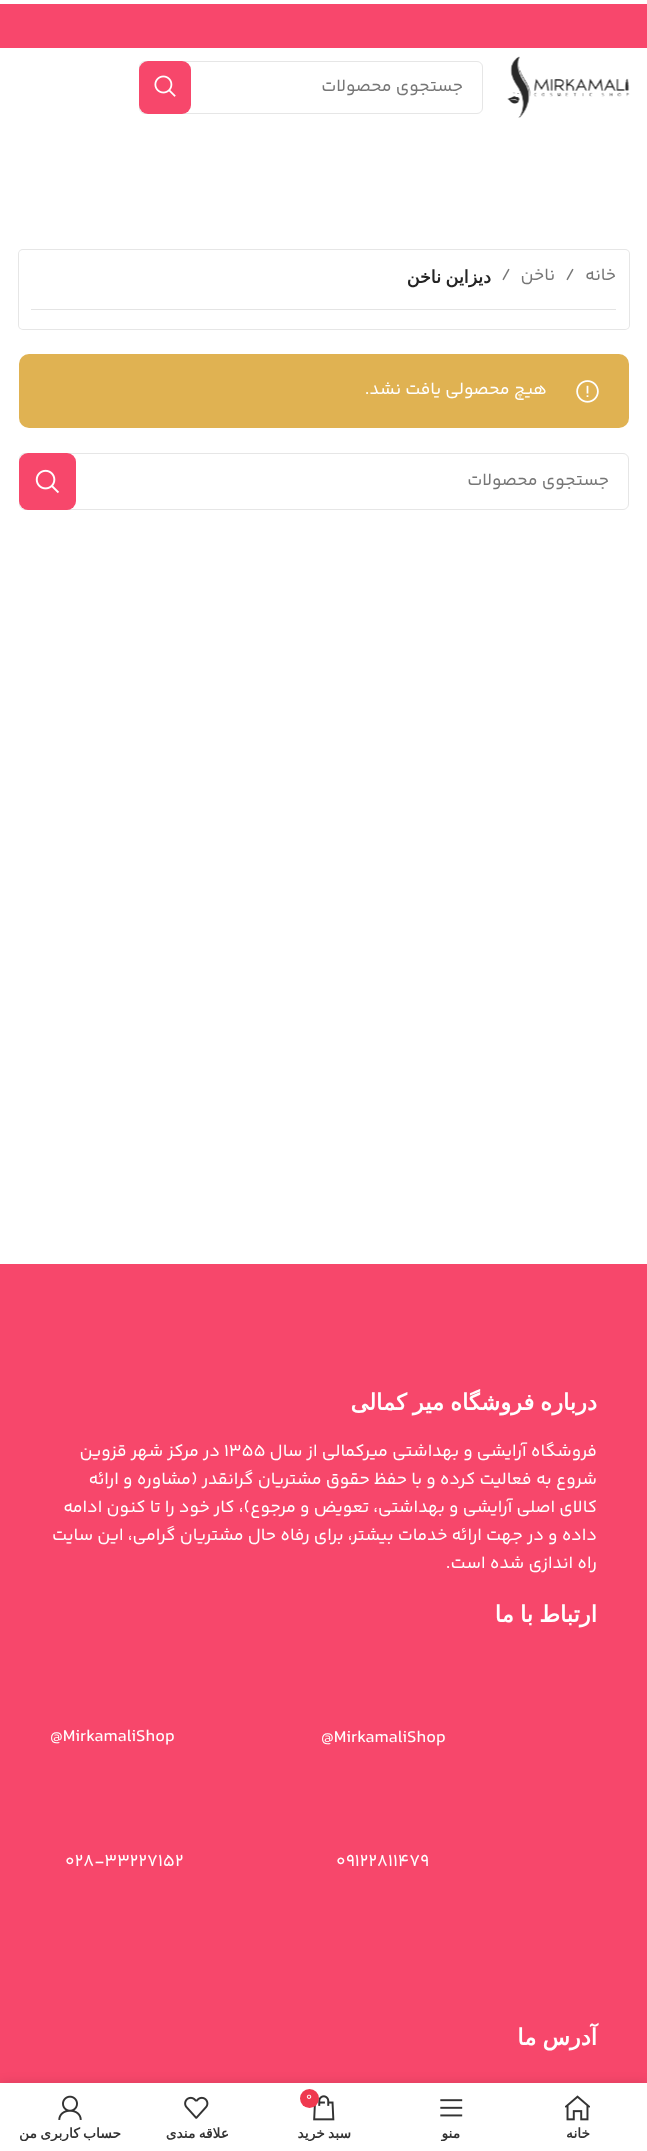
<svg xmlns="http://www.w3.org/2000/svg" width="647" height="2151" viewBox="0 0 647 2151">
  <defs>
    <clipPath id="clip1"><rect x="400" y="2125" width="101" height="16"/></clipPath>
    <clipPath id="clip2"><rect x="273" y="2125" width="102" height="16"/></clipPath>
    <clipPath id="clip3"><rect x="19" y="2125" width="102" height="16"/></clipPath>
  </defs>
  <rect width="100%" height="100%" fill="rgb(255,255,255)"/>
  <rect x="0" y="4" width="647" height="44" fill="rgb(248,71,108)"/>
  <image x="507" y="56" width="123" height="62" href="pic1.png"/>
  <rect x="139.5" y="61.5" width="343" height="52" rx="5.5" fill="none" stroke="rgb(230,230,230)"/>
  <text x="463" y="91" font-family="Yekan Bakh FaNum" font-size="17.5" direction="rtl" fill="rgb(118,118,118)">جستجوی محصولات</text>
  <rect x="139" y="61" width="52" height="53" rx="9" fill="rgb(247,71,107)"/>
  <image x="154" y="75" width="22" height="22" href="pic2.png"/>
  <rect x="18" y="249" width="612" height="81" rx="5" fill="rgb(230,230,230)" filter="blur(0.5px)"/>
  <rect x="19" y="250" width="610" height="79" rx="4" fill="rgb(255,255,255)"/>
  <rect x="31" y="309" width="585" height="1" fill="rgb(228,228,228)"/>
  <text x="616" y="280" font-family="Yekan Bakh FaNum" font-size="17.5" direction="rtl" fill="rgb(118,118,118)">خانه</text>
  <text x="565" y="280" font-family="Yekan Bakh FaNum" font-size="17.5" fill="rgb(118,118,118)">/</text>
  <text x="555" y="280" font-family="Yekan Bakh FaNum" font-size="17.5" direction="rtl" fill="rgb(118,118,118)">ناخن</text>
  <text x="501" y="280" font-family="Yekan Bakh FaNum" font-size="17.5" fill="rgb(118,118,118)">/</text>
  <text x="491" y="283" word-spacing="-1" font-family="DejaVu Sans" font-size="17.5" font-weight="bold" direction="rtl" fill="rgb(36,36,36)">دیزاین ناخن</text>
  <rect x="19" y="354" width="610" height="74" rx="10" fill="rgb(224,178,82)"/>
  <image x="576" y="380" width="23" height="23" href="pic3.png"/>
  <text x="547" y="394" font-family="Yekan Bakh FaNum" font-size="17.5" direction="rtl" fill="rgb(255,255,255)">هیچ محصولی یافت نشد.</text>
  <rect x="19.5" y="453.5" width="609" height="56" rx="5.5" fill="none" stroke="rgb(230,230,230)"/>
  <text x="609" y="485" font-family="Yekan Bakh FaNum" font-size="17.5" direction="rtl" fill="rgb(118,118,118)">جستجوی محصولات</text>
  <rect x="19" y="453" width="57" height="57" rx="9" fill="rgb(247,71,107)"/>
  <image x="35" y="469" width="24" height="25" href="pic4.png"/>
  <rect x="0" y="1264" width="647" height="819" fill="rgb(247,71,107)"/>
  <text x="597" y="1410" word-spacing="-1" font-family="DejaVu Sans" font-size="22.5" font-weight="bold" direction="rtl" fill="rgb(255,255,255)">درباره فروشگاه میر کمالی</text>
  <text x="597" y="1456" font-family="Yekan Bakh FaNum" font-size="17.5" direction="rtl" fill="rgb(255,255,255)">فروشگاه آرایشی و بهداشتی میرکمالی از سال</text>
  <text x="224" y="1456" font-family="Yekan Bakh FaNum" font-size="17.5" fill="rgb(255,255,255)">1355</text>
  <g font-family="Yekan Bakh FaNum" font-size="17.5" direction="rtl" fill="rgb(255,255,255)">
    <text x="220" y="1456">در مرکز شهر قزوين</text>
    <text>
      <tspan x="597" y="1484">شروع به فعاليت کرده و با حفظ حقوق مشتريان گرانقدر (مشاوره و ارائه</tspan>
      <tspan x="597" y="1512">كالاي اصلي آرايشي و بهداشتي، تعویض و مرجوع)، كار خود را تا كنون ادامه</tspan>
      <tspan x="597" y="1540">داده و در جهت ارائه خدمات بيشتر، براي رفاه حال مشتريان گرامی، اين سايت</tspan>
      <tspan x="597" y="1568">راه اندازی شده است.</tspan>
    </text>
  </g>
  <text x="597" y="1622" word-spacing="-1" font-family="DejaVu Sans" font-size="22.5" font-weight="bold" direction="rtl" fill="rgb(255,255,255)">ارتباط با ما</text>
  <g font-family="Yekan Bakh FaNum" font-size="17.5" fill="rgb(255,255,255)">
    <text x="321" y="1742">@MirkamaliShop</text>
    <text x="50" y="1741">@MirkamaliShop</text>
    <text x="336" y="1866">09122811479</text>
    <text x="65" y="1866">028-33227152</text>
  </g>
  <text x="597" y="2045" word-spacing="-1" font-family="DejaVu Sans" font-size="22.5" font-weight="bold" direction="rtl" fill="rgb(255,255,255)">آدرس ما</text>
  <rect x="0" y="2083" width="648" height="68" fill="rgba(0,0,0,0.12)" filter="blur(5.5px)"/>
  <rect x="0" y="2083" width="647" height="68" fill="rgb(255,255,255)"/>
  <image x="565" y="2095" width="25" height="26" href="pic5.png"/>
  <text x="590" y="2138" font-family="DejaVu Sans" font-size="13.75" font-weight="bold" direction="rtl" fill="rgb(51,51,51)">خانه</text>
  <image x="440" y="2099" width="23" height="18" href="pic6.png"/>
  <g clip-path="url(#clip1)">
    <text x="460" y="2138" font-family="DejaVu Sans" font-size="13.75" font-weight="bold" direction="rtl" fill="rgb(51,51,51)">منو</text>
  </g>
  <image x="313" y="2095" width="22" height="26" href="pic7.png"/>
  <circle cx="309.5" cy="2098.5" r="9.5" fill="rgb(239,57,79)"/>
  <text x="306" y="2100" font-family="Yekan Bakh FaNum" font-size="11" fill="rgb(255,255,255)">0</text>
  <g clip-path="url(#clip2)">
    <text x="351" y="2138" word-spacing="-1" font-family="DejaVu Sans" font-size="13.75" font-weight="bold" direction="rtl" fill="rgb(51,51,51)">سبد خرید</text>
  </g>
  <image x="184" y="2096" width="25" height="23" href="pic8.png"/>
  <text x="229" y="2138" word-spacing="-1" font-family="DejaVu Sans" font-size="13.75" font-weight="bold" direction="rtl" fill="rgb(51,51,51)">علاقه مندی</text>
  <image x="58" y="2095" width="24" height="25" href="pic9.png"/>
  <g clip-path="url(#clip3)">
    <text x="121" y="2138" word-spacing="-1" font-family="DejaVu Sans" font-size="13.75" font-weight="bold" direction="rtl" fill="rgb(51,51,51)">حساب کاربری من</text>
  </g>
</svg>
